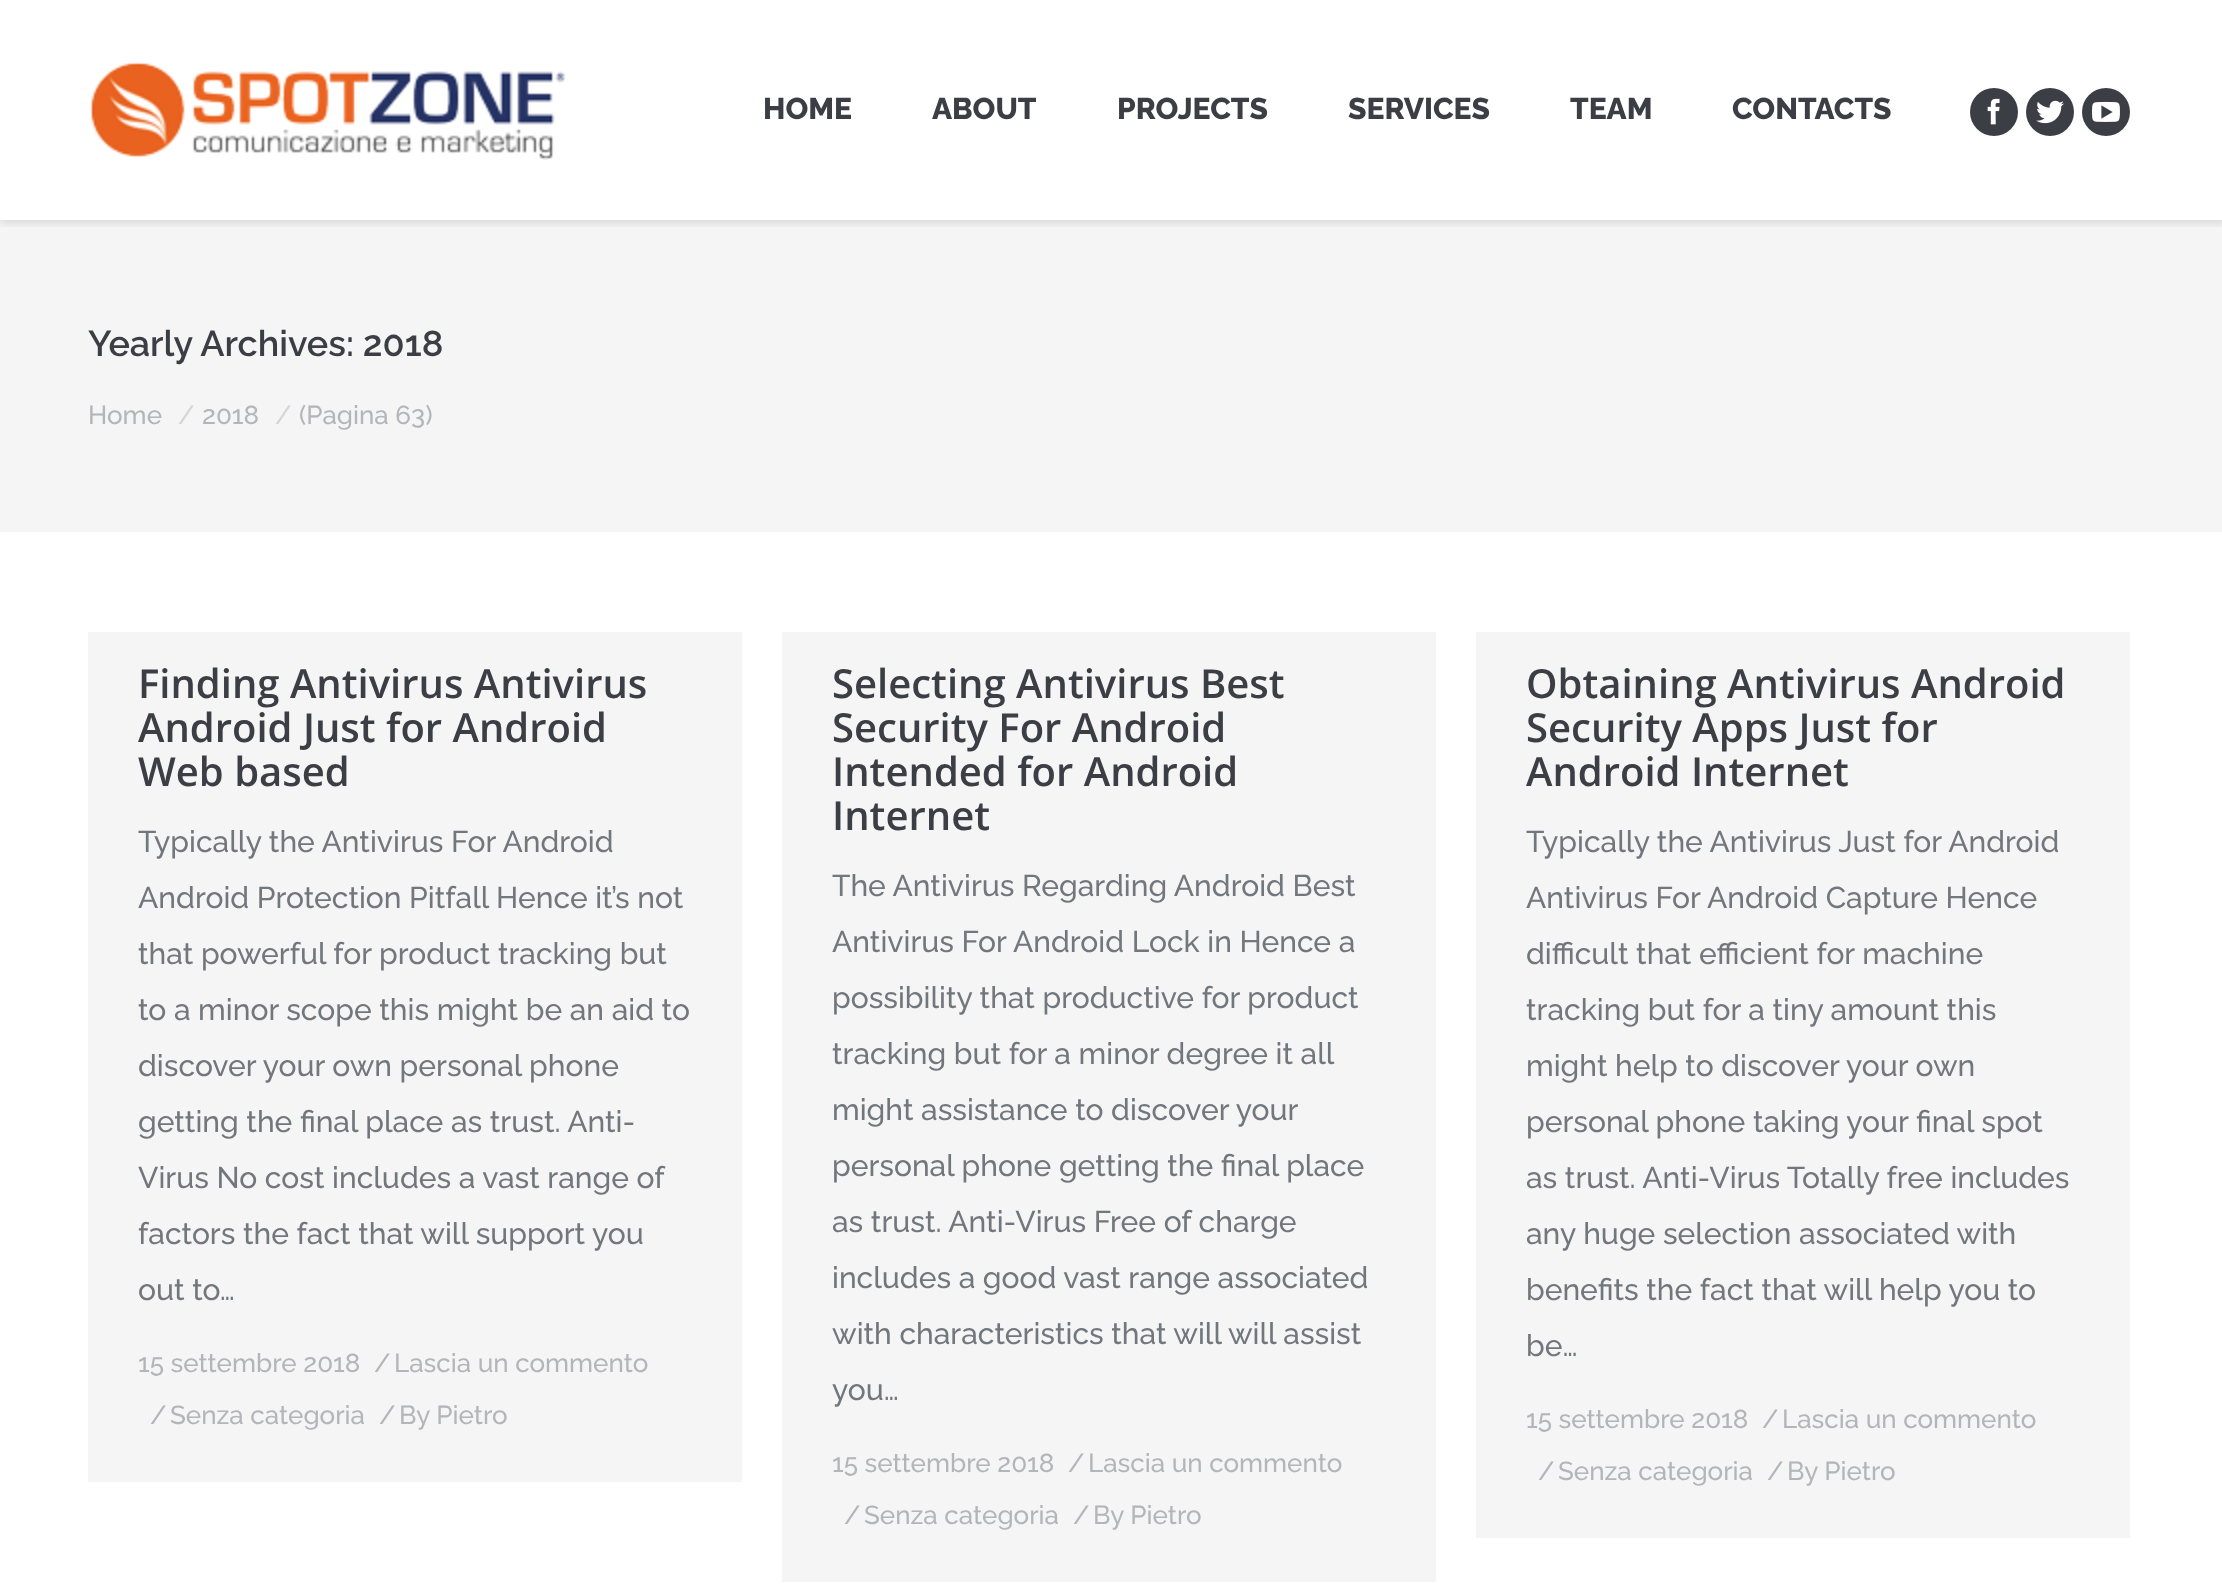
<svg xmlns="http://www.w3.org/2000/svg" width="2222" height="1584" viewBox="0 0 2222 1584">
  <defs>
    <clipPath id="clip1"><rect x="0" y="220" width="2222" height="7"/></clipPath>
  </defs>
  <rect width="100%" height="100%" fill="rgb(255,255,255)"/>
  <rect x="0" y="220" width="2222" height="312" fill="rgb(245,245,245)"/>
  <g clip-path="url(#clip1)">
    <rect x="0" y="0" width="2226" height="224" fill="rgba(0,0,0,0.1)" filter="blur(4px)"/>
  </g>
  <image x="90" y="62" width="476" height="98" href="pic1.png"/>
  <g font-family="Raleway" font-size="30" font-weight="800" fill="rgb(60,62,69)">
    <text x="763" y="119">HOME</text>
    <text x="932" y="119">ABOUT</text>
    <text x="1117" y="119">PROJECTS</text>
    <text x="1348" y="119">SERVICES</text>
    <text x="1570" y="119">TEAM</text>
    <text x="1732" y="119">CONTACTS</text>
  </g>
  <circle cx="1994" cy="112" r="24" fill="rgb(60,62,69)"/>
  <image x="1987" y="98" width="13" height="27" href="pic2.png"/>
  <circle cx="2050" cy="112" r="24" fill="rgb(60,62,69)"/>
  <image x="2036" y="100" width="28" height="24" href="pic3.png"/>
  <circle cx="2106" cy="112" r="24" fill="rgb(60,62,69)"/>
  <image x="2091" y="101" width="29" height="21" href="pic4.png"/>
  <text x="88" y="356" font-family="Raleway" font-size="36" font-weight="600" fill="rgb(60,62,69)">Yearly Archives: 2018</text>
  <text x="88" y="424" font-family="Raleway" font-size="26" font-weight="500" fill="rgb(179,181,185)">Home</text>
  <text x="178" y="424" font-family="Raleway" font-size="26" font-weight="500" fill="rgb(212,213,215)">/</text>
  <text x="202" y="424" font-family="Raleway" font-size="26" font-weight="500" fill="rgb(179,181,185)">2018</text>
  <text x="275" y="424" font-family="Raleway" font-size="26" font-weight="500" fill="rgb(212,213,215)">/</text>
  <text x="299" y="424" font-family="Raleway" font-size="26" font-weight="500" fill="rgb(179,181,185)">(Pagina 63)</text>
  <rect x="88" y="632" width="654" height="850" fill="rgb(245,245,245)"/>
  <g font-family="Open Sans" font-size="40" font-weight="600" fill="rgb(60,62,69)">
    <text>
      <tspan x="138" y="698">Finding Antivirus Antivirus</tspan>
      <tspan x="138" y="742">Android Just for Android</tspan>
      <tspan x="138" y="786">Web based</tspan>
    </text>
  </g>
  <g font-family="Raleway" font-size="30" font-weight="500" fill="rgb(114,119,125)">
    <text>
      <tspan x="138" y="852">Typically the Antivirus For Android</tspan>
      <tspan x="138" y="908">Android Protection Pitfall Hence it’s not</tspan>
      <tspan x="138" y="964">that powerful for product tracking but</tspan>
      <tspan x="138" y="1020">to a minor scope this might be an aid to</tspan>
      <tspan x="138" y="1076">discover your own personal phone</tspan>
      <tspan x="138" y="1132">getting the final place as trust. Anti-</tspan>
      <tspan x="138" y="1188">Virus No cost includes a vast range of</tspan>
      <tspan x="138" y="1244">factors the fact that will support you</tspan>
      <tspan x="138" y="1300">out to…</tspan>
    </text>
  </g>
  <g font-family="Raleway" font-size="26" font-weight="500" fill="rgb(179,181,185)">
    <text x="138" y="1372">15 settembre 2018</text>
    <text x="374" y="1372">/</text>
    <text x="394" y="1372">Lascia un commento</text>
    <text x="150" y="1424">/</text>
    <text x="170" y="1424">Senza categoria</text>
    <text x="379" y="1424">/</text>
    <text x="399" y="1424">By Pietro</text>
  </g>
  <rect x="782" y="632" width="654" height="950" fill="rgb(245,245,245)"/>
  <g font-family="Open Sans" font-size="40" font-weight="600" fill="rgb(60,62,69)">
    <text>
      <tspan x="832" y="698">Selecting Antivirus Best</tspan>
      <tspan x="832" y="742">Security For Android</tspan>
      <tspan x="832" y="786">Intended for Android</tspan>
      <tspan x="832" y="830">Internet</tspan>
    </text>
  </g>
  <g font-family="Raleway" font-size="30" font-weight="500" fill="rgb(114,119,125)">
    <text>
      <tspan x="832" y="896">The Antivirus Regarding Android Best</tspan>
      <tspan x="832" y="952">Antivirus For Android Lock in Hence a</tspan>
      <tspan x="832" y="1008">possibility that productive for product</tspan>
      <tspan x="832" y="1064">tracking but for a minor degree it all</tspan>
      <tspan x="832" y="1120">might assistance to discover your</tspan>
      <tspan x="832" y="1176">personal phone getting the final place</tspan>
      <tspan x="832" y="1232">as trust. Anti-Virus Free of charge</tspan>
      <tspan x="832" y="1288">includes a good vast range associated</tspan>
      <tspan x="832" y="1344">with characteristics that will will assist</tspan>
      <tspan x="832" y="1400">you…</tspan>
    </text>
  </g>
  <g font-family="Raleway" font-size="26" font-weight="500" fill="rgb(179,181,185)">
    <text x="832" y="1472">15 settembre 2018</text>
    <text x="1068" y="1472">/</text>
    <text x="1088" y="1472">Lascia un commento</text>
    <text x="844" y="1524">/</text>
    <text x="864" y="1524">Senza categoria</text>
    <text x="1073" y="1524">/</text>
    <text x="1093" y="1524">By Pietro</text>
  </g>
  <rect x="1476" y="632" width="654" height="906" fill="rgb(245,245,245)"/>
  <g font-family="Open Sans" font-size="40" font-weight="600" fill="rgb(60,62,69)">
    <text>
      <tspan x="1526" y="698">Obtaining Antivirus Android</tspan>
      <tspan x="1526" y="742">Security Apps Just for</tspan>
      <tspan x="1526" y="786">Android Internet</tspan>
    </text>
  </g>
  <g font-family="Raleway" font-size="30" font-weight="500" fill="rgb(114,119,125)">
    <text>
      <tspan x="1526" y="852">Typically the Antivirus Just for Android</tspan>
      <tspan x="1526" y="908">Antivirus For Android Capture Hence</tspan>
      <tspan x="1526" y="964">difficult that efficient for machine</tspan>
      <tspan x="1526" y="1020">tracking but for a tiny amount this</tspan>
      <tspan x="1526" y="1076">might help to discover your own</tspan>
      <tspan x="1526" y="1132">personal phone taking your final spot</tspan>
      <tspan x="1526" y="1188">as trust. Anti-Virus Totally free includes</tspan>
      <tspan x="1526" y="1244">any huge selection associated with</tspan>
      <tspan x="1526" y="1300">benefits the fact that will help you to</tspan>
      <tspan x="1526" y="1356">be…</tspan>
    </text>
  </g>
  <g font-family="Raleway" font-size="26" font-weight="500" fill="rgb(179,181,185)">
    <text x="1526" y="1428">15 settembre 2018</text>
    <text x="1762" y="1428">/</text>
    <text x="1782" y="1428">Lascia un commento</text>
    <text x="1538" y="1480">/</text>
    <text x="1558" y="1480">Senza categoria</text>
    <text x="1767" y="1480">/</text>
    <text x="1787" y="1480">By Pietro</text>
  </g>
</svg>
